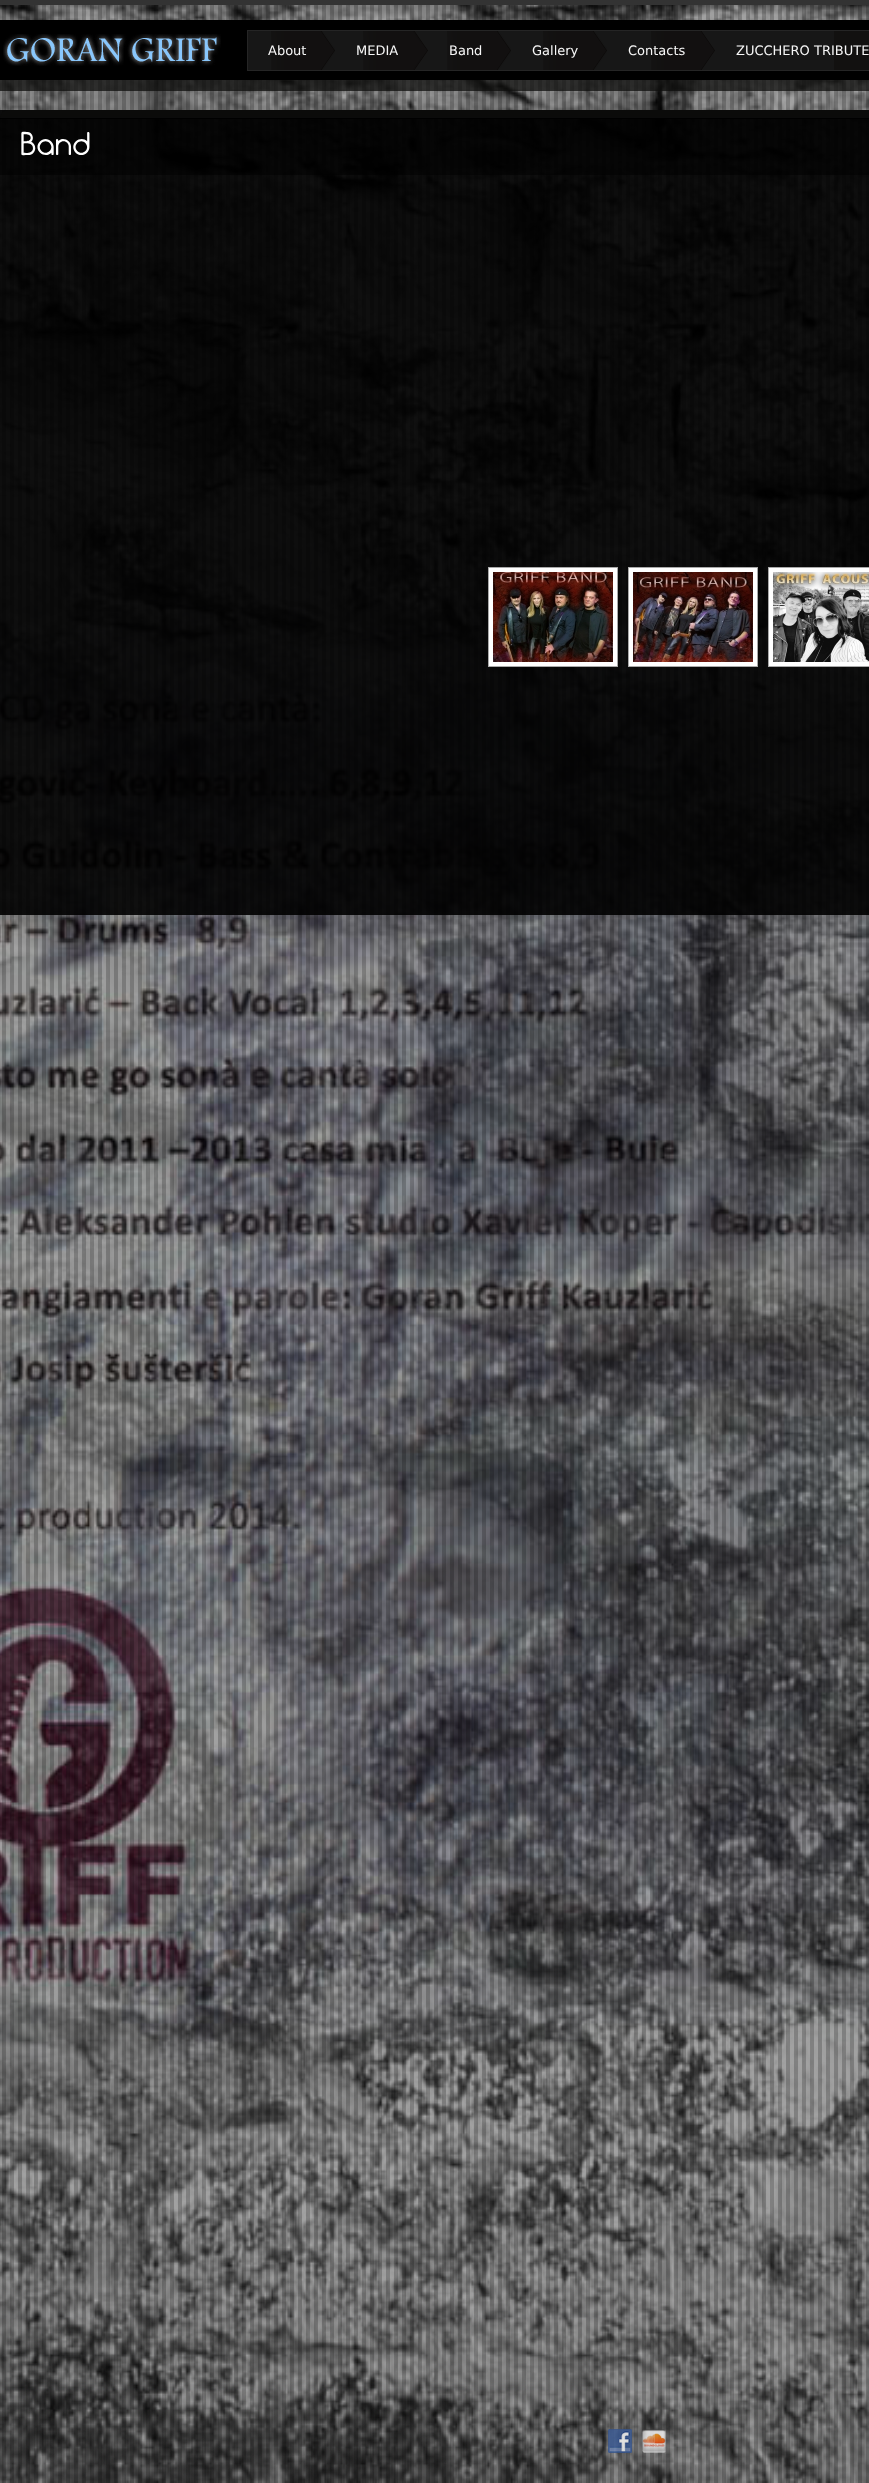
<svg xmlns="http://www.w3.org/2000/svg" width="869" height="2483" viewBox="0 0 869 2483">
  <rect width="100%" height="100%" fill="rgb(17,17,17)"/>
  <image x="0" y="5" width="869" height="2478" href="pic1.png"/>
  <image x="2" y="5" width="867" height="2478" href="pic2.png"/>
  <image x="0" y="20" width="869" height="71" href="pic3.png"/>
  <rect x="0" y="0" width="869" height="5" fill="rgb(51,51,51)"/>
  <image x="3" y="34" width="218" height="32" href="pic4.png"/>
  <rect x="248" y="31" width="586" height="39" fill="rgb(23,23,23)"/>
  <rect x="247.5" y="30.5" width="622" height="40" fill="none" stroke="rgb(37,37,37)"/>
  <image x="271" y="31" width="64" height="39" href="pic5.png"/>
  <text x="268" y="55" font-family="DejaVu Sans" font-size="13" fill="rgb(247,247,247)">About</text>
  <image x="363" y="31" width="65" height="39" href="pic6.png"/>
  <text x="356" y="55" font-family="DejaVu Sans" font-size="13" fill="rgb(247,247,247)">MEDIA</text>
  <image x="447" y="31" width="64" height="39" href="pic5.png"/>
  <text x="449" y="55" font-family="DejaVu Sans" font-size="13" fill="rgb(247,247,247)">Band</text>
  <image x="543" y="31" width="64" height="39" href="pic7.png"/>
  <text x="532" y="55" font-family="DejaVu Sans" font-size="13" fill="rgb(247,247,247)">Gallery</text>
  <image x="651" y="31" width="64" height="39" href="pic8.png"/>
  <text x="628" y="55" font-family="DejaVu Sans" font-size="13" fill="rgb(247,247,247)">Contacts</text>
  <rect x="834" y="31" width="35" height="39" fill="rgb(18,17,16)"/>
  <text x="736" y="55" font-family="DejaVu Sans" font-size="13" fill="rgb(247,247,247)">ZUCCHERO TRIBUTE</text>
  <rect x="0" y="110" width="869" height="65" fill="rgba(0,0,0,0.9)"/>
  <image x="0" y="110" width="869" height="65" href="pic9.png"/>
  <image x="21" y="131" width="69" height="25" href="pic10.png"/>
  <rect x="0" y="175" width="869" height="740" fill="rgba(0,0,0,0.9)"/>
  <rect x="488.5" y="567.5" width="129" height="99" fill="rgb(255,255,255)" stroke="rgb(169,169,169)"/>
  <image x="493" y="572" width="120" height="90" href="pic11.png"/>
  <rect x="628.5" y="567.5" width="129" height="99" fill="rgb(255,255,255)" stroke="rgb(169,169,169)"/>
  <image x="633" y="572" width="120" height="90" href="pic12.png"/>
  <rect x="768.5" y="567.5" width="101" height="99" fill="rgb(255,255,255)" stroke="rgb(169,169,169)"/>
  <image x="773" y="572" width="96" height="90" href="pic13.png"/>
  <image x="608" y="2429" width="24" height="24" href="pic14.png"/>
  <image x="642" y="2429" width="24" height="24" href="pic15.png"/>
</svg>
